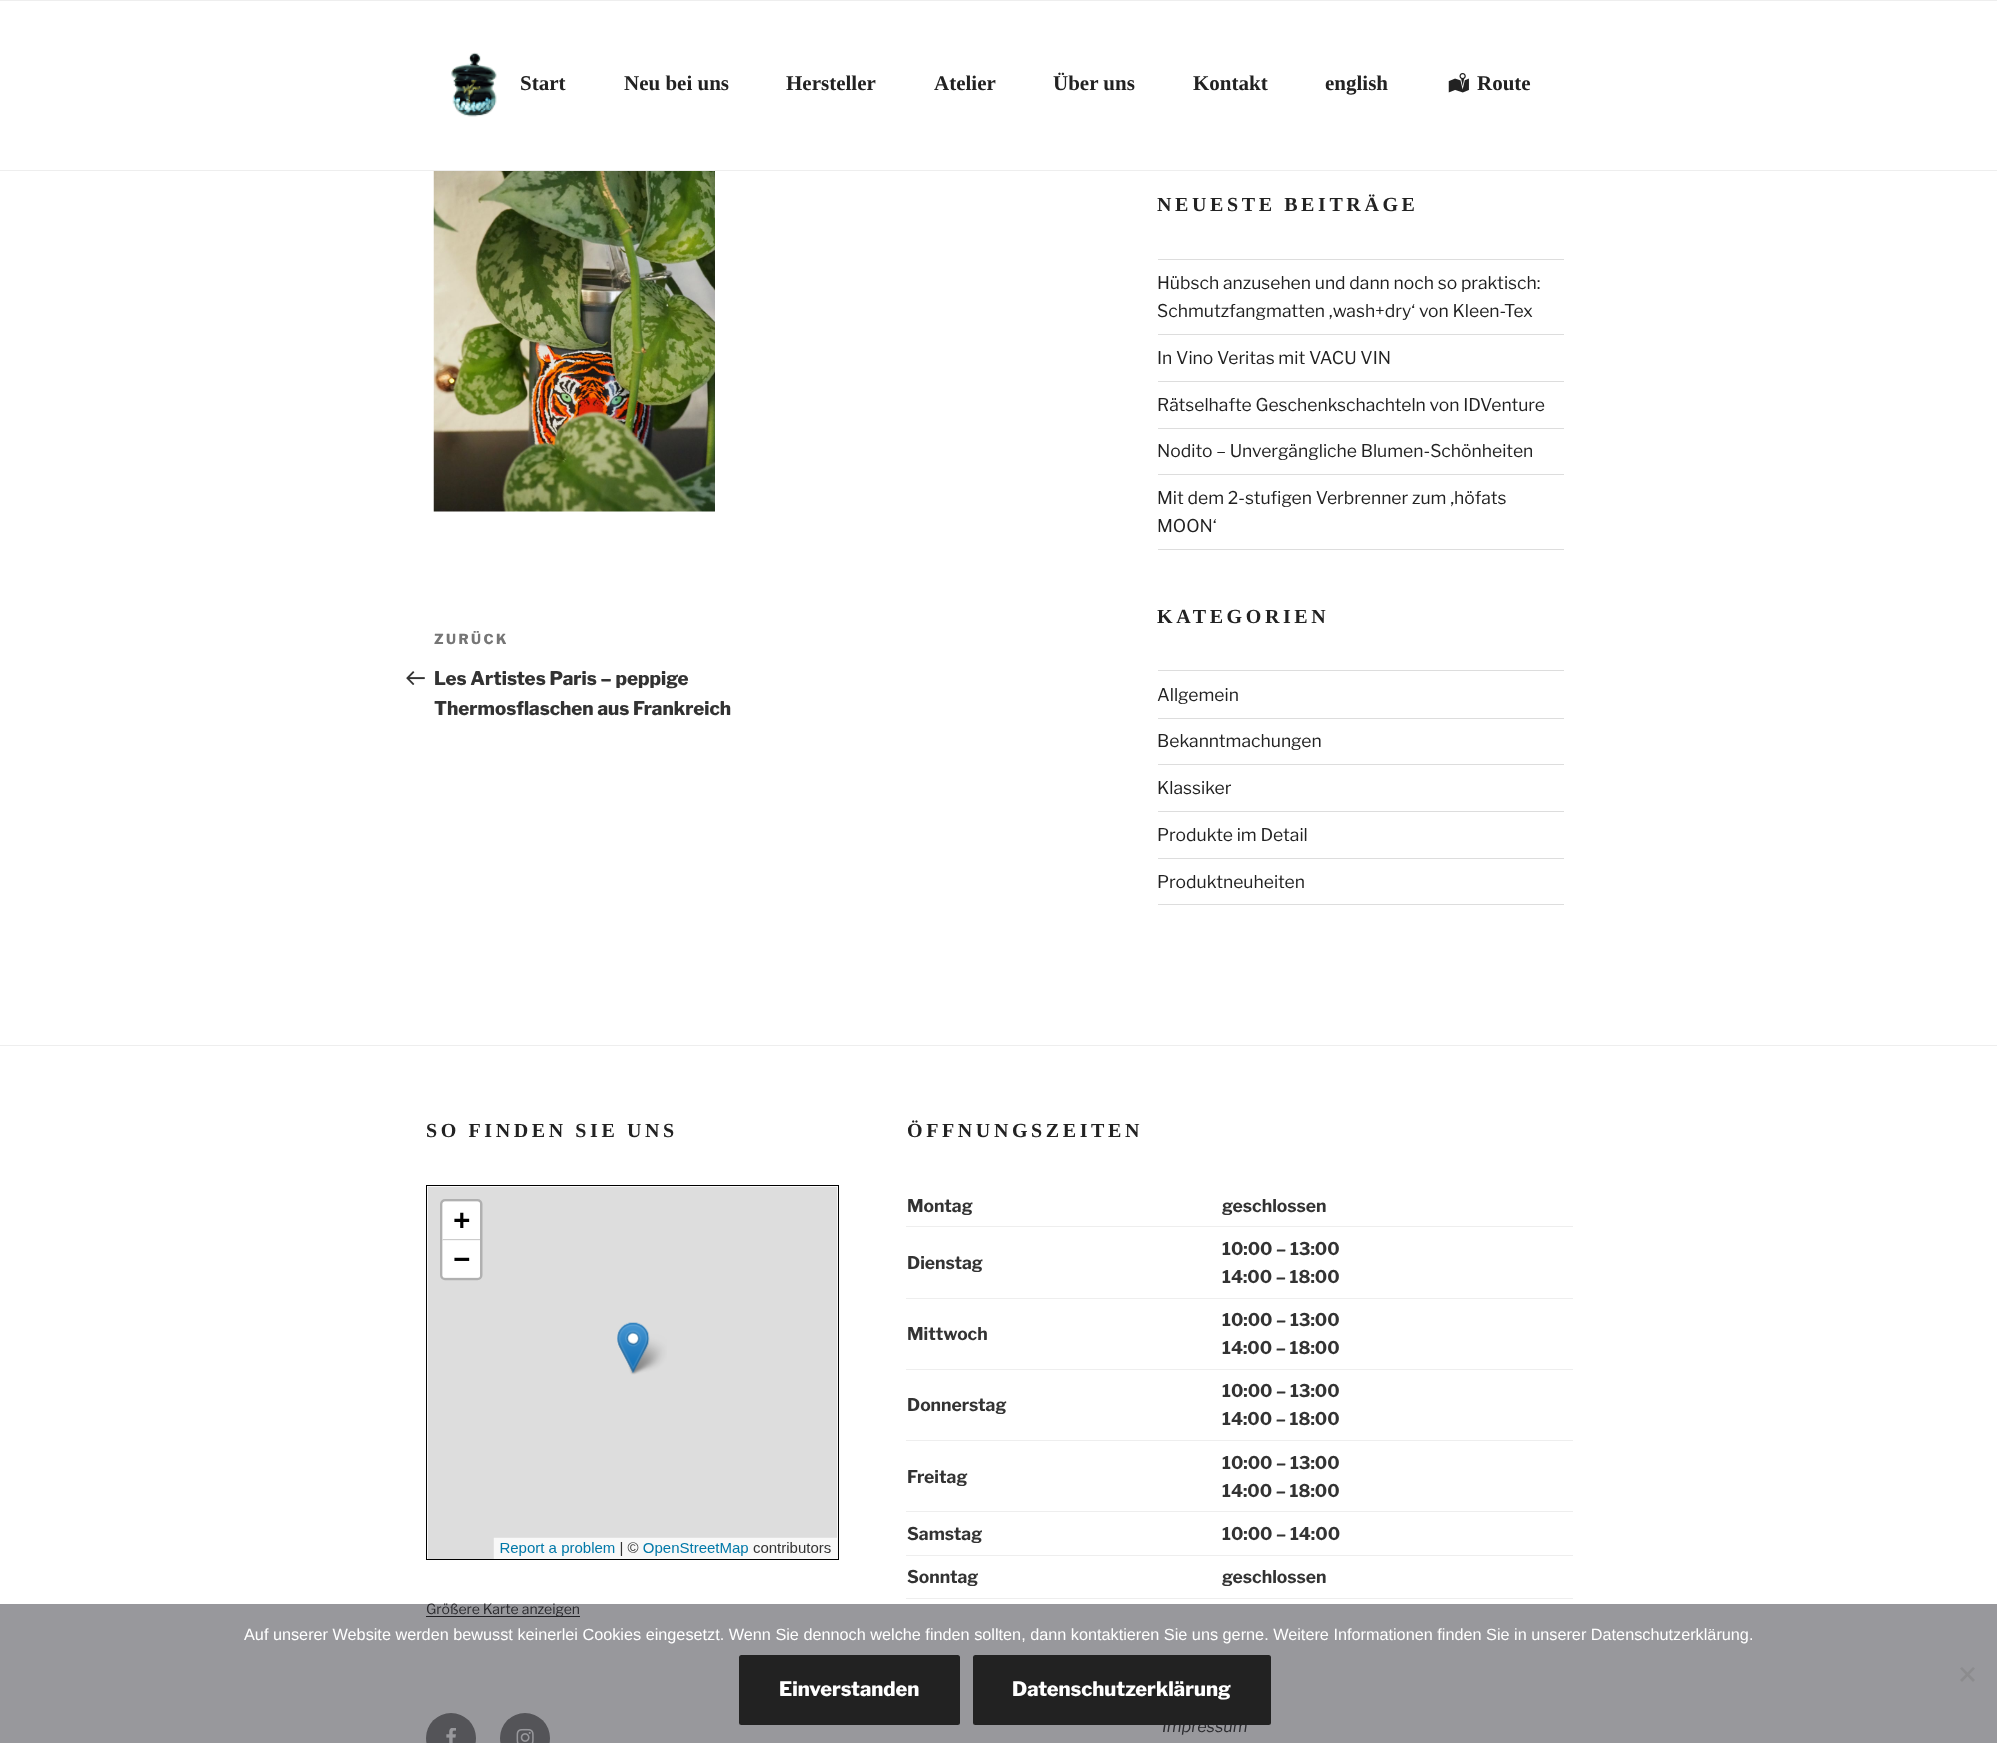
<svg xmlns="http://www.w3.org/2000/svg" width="1997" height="1743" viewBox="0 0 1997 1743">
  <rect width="100%" height="100%" fill="rgb(255,255,255)"/>
  <rect x="0" y="0" width="1997" height="1" fill="rgb(238,238,238)"/>
  <rect x="0" y="170" width="1997" height="1" fill="rgb(238,238,238)"/>
  <image x="451" y="52" width="46" height="65" href="pic1.png"/>
  <g font-family="Liberation Serif" font-size="21" font-weight="bold" fill="rgb(34,34,34)">
    <text x="520" y="90">Start</text>
    <text x="624" y="90">Neu bei uns</text>
    <text x="786" y="90">Hersteller</text>
    <text x="934" y="90">Atelier</text>
    <text x="1053" y="90">Über uns</text>
    <text x="1193" y="90">Kontakt</text>
    <text x="1325" y="90">english</text>
  </g>
  <image x="1448" y="73" width="21" height="20" href="pic2.png"/>
  <text x="1477" y="90" font-family="Liberation Serif" font-size="21" font-weight="bold" fill="rgb(34,34,34)">Route</text>
  <image x="433" y="171" width="282" height="341" href="pic3.png"/>
  <text x="434" y="644" font-family="Libre Franklin" font-size="13.75" font-weight="800" letter-spacing="2.5" fill="rgb(118,118,118)">ZURÜCK</text>
  <image x="406" y="671" width="19" height="14" href="pic4.png"/>
  <g font-family="Libre Franklin" font-size="18.75" font-weight="800" fill="rgb(51,51,51)">
    <text>
      <tspan x="434" y="685">Les Artistes Paris – peppige</tspan>
      <tspan x="434" y="715">Thermosflaschen aus Frankreich</tspan>
    </text>
  </g>
  <text x="1157" y="211" font-family="Liberation Serif" font-size="20" font-weight="bold" letter-spacing="3.6" fill="rgb(34,34,34)">NEUESTE BEITRÄGE</text>
  <rect x="1158" y="259" width="406" height="1" fill="rgb(221,221,221)"/>
  <rect x="1158" y="334" width="406" height="1" fill="rgb(221,221,221)"/>
  <g font-family="Libre Franklin" font-size="17.5" fill="rgb(34,34,34)">
    <text>
      <tspan x="1157" y="289">Hübsch anzusehen und dann noch so praktisch:</tspan>
      <tspan x="1157" y="317">Schmutzfangmatten ‚wash+dry‘ von Kleen-Tex</tspan>
    </text>
  </g>
  <rect x="1158" y="381" width="406" height="1" fill="rgb(221,221,221)"/>
  <text x="1157" y="364" font-family="Libre Franklin" font-size="17.5" fill="rgb(34,34,34)">In Vino Veritas mit VACU VIN</text>
  <rect x="1158" y="428" width="406" height="1" fill="rgb(221,221,221)"/>
  <text x="1157" y="411" font-family="Libre Franklin" font-size="17.5" fill="rgb(34,34,34)">Rätselhafte Geschenkschachteln von IDVenture</text>
  <rect x="1158" y="474" width="406" height="1" fill="rgb(221,221,221)"/>
  <text x="1157" y="457" font-family="Libre Franklin" font-size="17.5" fill="rgb(34,34,34)">Nodito – Unvergängliche Blumen-Schönheiten</text>
  <rect x="1158" y="549" width="406" height="1" fill="rgb(221,221,221)"/>
  <g font-family="Libre Franklin" font-size="17.5" fill="rgb(34,34,34)">
    <text>
      <tspan x="1157" y="504">Mit dem 2-stufigen Verbrenner zum ‚höfats</tspan>
      <tspan x="1157" y="532">MOON‘</tspan>
    </text>
  </g>
  <text x="1157" y="623" font-family="Liberation Serif" font-size="20" font-weight="bold" letter-spacing="3.6" fill="rgb(34,34,34)">KATEGORIEN</text>
  <rect x="1158" y="670" width="406" height="1" fill="rgb(221,221,221)"/>
  <rect x="1158" y="718" width="406" height="1" fill="rgb(221,221,221)"/>
  <text x="1157" y="701" font-family="Libre Franklin" font-size="17.5" fill="rgb(34,34,34)">Allgemein</text>
  <rect x="1158" y="764" width="406" height="1" fill="rgb(221,221,221)"/>
  <text x="1157" y="747" font-family="Libre Franklin" font-size="17.5" fill="rgb(34,34,34)">Bekanntmachungen</text>
  <rect x="1158" y="811" width="406" height="1" fill="rgb(221,221,221)"/>
  <text x="1157" y="794" font-family="Libre Franklin" font-size="17.5" fill="rgb(34,34,34)">Klassiker</text>
  <rect x="1158" y="858" width="406" height="1" fill="rgb(221,221,221)"/>
  <text x="1157" y="841" font-family="Libre Franklin" font-size="17.5" fill="rgb(34,34,34)">Produkte im Detail</text>
  <rect x="1158" y="904" width="406" height="1" fill="rgb(221,221,221)"/>
  <text x="1157" y="888" font-family="Libre Franklin" font-size="17.5" fill="rgb(34,34,34)">Produktneuheiten</text>
  <rect x="0" y="1045" width="1997" height="1" fill="rgb(238,238,238)"/>
  <text x="426" y="1137" font-family="Liberation Serif" font-size="20" font-weight="bold" letter-spacing="3.6" fill="rgb(34,34,34)">SO FINDEN SIE UNS</text>
  <rect x="426.5" y="1185.5" width="412" height="374" fill="none" stroke="rgb(0,0,0)"/>
  <image x="427" y="1186" width="411" height="373" href="pic5.png"/>
  <rect x="426" y="1616" width="154" height="1" fill="rgb(15,15,15)"/>
  <text x="426" y="1614" font-family="Libre Franklin" font-size="14" fill="rgb(34,34,34)">Größere Karte anzeigen</text>
  <text x="907" y="1137" font-family="Liberation Serif" font-size="20" font-weight="bold" letter-spacing="3.6" fill="rgb(34,34,34)">ÖFFNUNGSZEITEN</text>
  <rect x="906" y="1226" width="667" height="1" fill="rgb(238,238,238)"/>
  <g font-family="Libre Franklin" font-size="17.5" font-weight="bold" fill="rgb(51,51,51)">
    <text x="907" y="1212">Montag</text>
    <text x="1222" y="1212">geschlossen</text>
  </g>
  <rect x="906" y="1298" width="667" height="1" fill="rgb(238,238,238)"/>
  <g font-family="Libre Franklin" font-size="17.5" font-weight="bold" fill="rgb(51,51,51)">
    <text x="907" y="1269">Dienstag</text>
    <text>
      <tspan x="1222" y="1255">10:00 – 13:00</tspan>
      <tspan x="1222" y="1283">14:00 – 18:00</tspan>
    </text>
  </g>
  <rect x="906" y="1369" width="667" height="1" fill="rgb(238,238,238)"/>
  <g font-family="Libre Franklin" font-size="17.5" font-weight="bold" fill="rgb(51,51,51)">
    <text x="907" y="1340">Mittwoch</text>
    <text>
      <tspan x="1222" y="1326">10:00 – 13:00</tspan>
      <tspan x="1222" y="1354">14:00 – 18:00</tspan>
    </text>
  </g>
  <rect x="906" y="1440" width="667" height="1" fill="rgb(238,238,238)"/>
  <g font-family="Libre Franklin" font-size="17.5" font-weight="bold" fill="rgb(51,51,51)">
    <text x="907" y="1411">Donnerstag</text>
    <text>
      <tspan x="1222" y="1397">10:00 – 13:00</tspan>
      <tspan x="1222" y="1425">14:00 – 18:00</tspan>
    </text>
  </g>
  <rect x="906" y="1511" width="667" height="1" fill="rgb(238,238,238)"/>
  <g font-family="Libre Franklin" font-size="17.5" font-weight="bold" fill="rgb(51,51,51)">
    <text x="907" y="1483">Freitag</text>
    <text>
      <tspan x="1222" y="1469">10:00 – 13:00</tspan>
      <tspan x="1222" y="1497">14:00 – 18:00</tspan>
    </text>
  </g>
  <rect x="906" y="1555" width="667" height="1" fill="rgb(238,238,238)"/>
  <g font-family="Libre Franklin" font-size="17.5" font-weight="bold" fill="rgb(51,51,51)">
    <text x="907" y="1540">Samstag</text>
    <text x="1222" y="1540">10:00 – 14:00</text>
  </g>
  <rect x="906" y="1598" width="667" height="1" fill="rgb(238,238,238)"/>
  <g font-family="Libre Franklin" font-size="17.5" font-weight="bold" fill="rgb(51,51,51)">
    <text x="907" y="1583">Sonntag</text>
    <text x="1222" y="1583">geschlossen</text>
  </g>
  <circle cx="451" cy="1738" r="25" fill="rgb(118,118,118)"/>
  <image x="446" y="1728" width="10" height="15" href="pic6.png"/>
  <circle cx="525" cy="1738" r="25" fill="rgb(118,118,118)"/>
  <image x="516" y="1728" width="18" height="15" href="pic7.png"/>
  <text x="1162" y="1732" font-family="Libre Franklin" font-size="16.25" font-style="italic" fill="rgb(34,34,34)">Impressum</text>
  <rect x="0" y="1604" width="1997" height="139" fill="rgba(50,50,58,0.5)"/>
  <text x="244" y="1640" font-family="Liberation Sans" font-size="16.25" fill="rgb(255,255,255)">Auf unserer Website werden bewusst keinerlei Cookies eingesetzt. Wenn Sie dennoch welche finden sollten, dann kontaktieren Sie uns gerne. Weitere Informationen finden Sie in unserer Datenschutzerklärung.</text>
  <path d="M1973 1667L1975 1668.5L1962 1682L1960 1680Z" fill="rgb(140,140,142)"/>
  <path d="M1960 1668.5L1962 1667L1975 1680L1973 1682Z" fill="rgb(140,140,142)"/>
  <rect x="739" y="1655" width="221" height="70" rx="2.5" fill="rgb(34,34,34)"/>
  <text x="779" y="1696" font-family="Libre Franklin" font-size="20" font-weight="800" fill="rgb(255,255,255)">Einverstanden</text>
  <rect x="973" y="1655" width="298" height="70" rx="2.5" fill="rgb(34,34,34)"/>
  <text x="1012" y="1696" font-family="Libre Franklin" font-size="20" font-weight="800" fill="rgb(255,255,255)">Datenschutzerklärung</text>
</svg>
